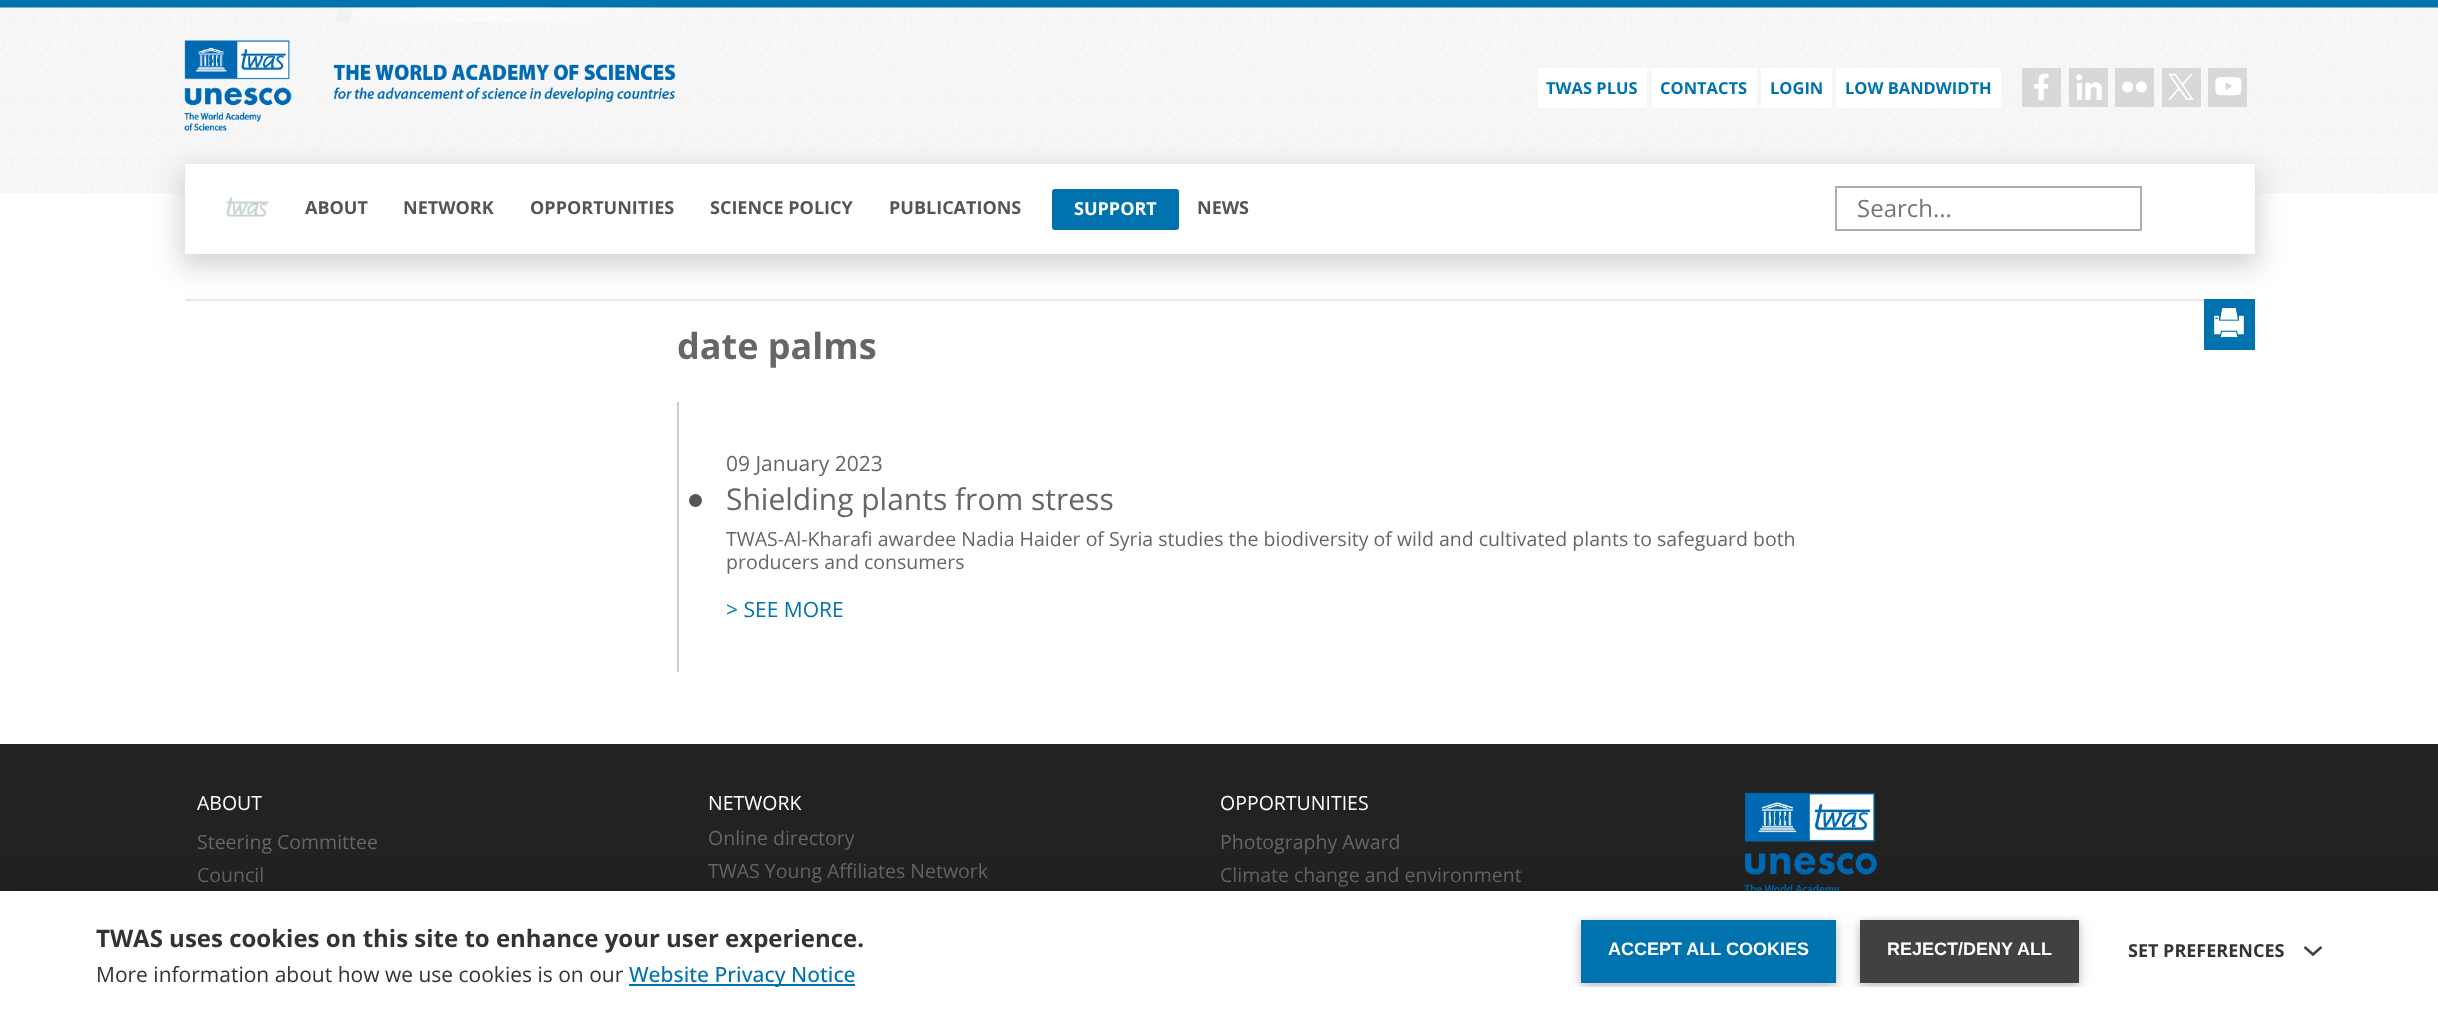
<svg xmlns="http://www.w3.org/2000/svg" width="2438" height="1011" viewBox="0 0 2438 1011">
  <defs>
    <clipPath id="clip1"><rect x="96" y="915" width="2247" height="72"/></clipPath>
    <clipPath id="clip2"><rect x="2304" y="942" width="18" height="18"/></clipPath>
  </defs>
  <rect width="100%" height="100%" fill="rgb(255,255,255)"/>
  <rect x="0" y="0" width="2438" height="8" fill="rgb(0,115,174)"/>
  <image x="0" y="7" width="2438" height="187" href="pic1.png"/>
  <image x="315" y="7" width="343" height="16" href="pic2.png"/>
  <image x="184" y="40" width="492" height="91" href="pic3.png"/>
  <rect x="1538" y="68" width="109" height="40" fill="rgb(255,255,255)"/>
  <text x="1546" y="94" font-family="Open Sans" font-size="16.5" font-weight="bold" fill="rgb(0,115,174)">TWAS PLUS</text>
  <rect x="1652" y="68" width="105" height="40" fill="rgb(255,255,255)"/>
  <text x="1660" y="94" font-family="Open Sans" font-size="16.5" font-weight="bold" fill="rgb(0,115,174)">CONTACTS</text>
  <rect x="1761" y="68" width="71" height="40" fill="rgb(255,255,255)"/>
  <text x="1770" y="94" font-family="Open Sans" font-size="16.5" font-weight="bold" fill="rgb(0,115,174)">LOGIN</text>
  <rect x="1836" y="68" width="165" height="40" fill="rgb(255,255,255)"/>
  <text x="1845" y="94" font-family="Open Sans" font-size="16.5" font-weight="bold" fill="rgb(0,115,174)">LOW BANDWIDTH</text>
  <image x="2022" y="68" width="39" height="39" href="pic4.png"/>
  <image x="2069" y="68" width="39" height="39" href="pic5.png"/>
  <image x="2115" y="68" width="39" height="39" href="pic6.png"/>
  <image x="2162" y="68" width="39" height="39" href="pic7.png"/>
  <image x="2208" y="68" width="39" height="39" href="pic8.png"/>
  <rect x="185" y="299" width="2019" height="2" fill="rgb(232,232,232)"/>
  <rect x="2204" y="299" width="51" height="51" fill="rgb(0,115,174)"/>
  <image x="2214" y="308" width="30" height="30" href="pic10.png"/>
  <rect x="180" y="168" width="2079" height="99" fill="rgb(212,212,212)" filter="blur(13.5px)"/>
  <rect x="185" y="164" width="2070" height="90" fill="rgb(255,255,255)"/>
  <image x="226" y="197" width="43" height="20" href="pic9.png"/>
  <g font-family="Open Sans" font-size="18" font-weight="bold" fill="rgb(85,85,85)">
    <text x="305" y="214">ABOUT</text>
    <text x="403" y="214">NETWORK</text>
    <text x="530" y="214">OPPORTUNITIES</text>
    <text x="710" y="214">SCIENCE POLICY</text>
    <text x="889" y="214">PUBLICATIONS</text>
  </g>
  <rect x="1052" y="189" width="127" height="41" rx="3" fill="rgb(0,115,174)"/>
  <text x="1074" y="215" font-family="Open Sans" font-size="18" font-weight="bold" fill="rgb(255,255,255)">SUPPORT</text>
  <text x="1197" y="214" font-family="Open Sans" font-size="18" font-weight="bold" fill="rgb(85,85,85)">NEWS</text>
  <rect x="1836" y="187" width="305" height="43" fill="none" stroke="rgb(173,173,173)" stroke-width="2"/>
  <text x="1857" y="217" font-family="Open Sans" font-size="24" fill="rgb(117,117,117)">Search...</text>
  <text x="677" y="359" font-family="Open Sans" font-size="36" font-weight="bold" fill="rgb(102,102,102)">date palms</text>
  <rect x="677" y="402" width="2" height="270" fill="rgb(204,204,204)"/>
  <text x="726" y="471" font-family="Open Sans" font-size="21" fill="rgb(102,102,102)">09 January 2023</text>
  <circle cx="695.5" cy="500.5" r="6.5" fill="rgb(85,85,85)"/>
  <text x="726" y="510" font-family="Open Sans" font-size="30" fill="rgb(102,102,102)">Shielding plants from stress</text>
  <g font-family="Open Sans" font-size="19.5" fill="rgb(102,102,102)">
    <text>
      <tspan x="726" y="546">TWAS-Al-Kharafi awardee Nadia Haider of Syria studies the biodiversity of wild and cultivated plants to safeguard both</tspan>
      <tspan x="726" y="569">producers and consumers</tspan>
    </text>
  </g>
  <text x="726" y="617" font-family="Open Sans" font-size="21" fill="rgb(0,115,174)">&gt; SEE MORE</text>
  <rect x="0" y="744" width="2438" height="147" fill="rgb(34,34,34)"/>
  <text x="197" y="810" font-family="Open Sans" font-size="19.5" fill="rgb(255,255,255)">ABOUT</text>
  <g font-family="Open Sans" font-size="19.5" fill="rgb(102,102,102)">
    <text>
      <tspan x="197" y="849">Steering Committee</tspan>
      <tspan x="197" y="882">Council</tspan>
    </text>
  </g>
  <text x="708" y="810" font-family="Open Sans" font-size="19.5" fill="rgb(255,255,255)">NETWORK</text>
  <g font-family="Open Sans" font-size="19.5" fill="rgb(102,102,102)">
    <text>
      <tspan x="708" y="845">Online directory</tspan>
      <tspan x="708" y="878">TWAS Young Affiliates Network</tspan>
    </text>
  </g>
  <text x="1220" y="810" font-family="Open Sans" font-size="19.5" fill="rgb(255,255,255)">OPPORTUNITIES</text>
  <g font-family="Open Sans" font-size="19.5" fill="rgb(102,102,102)">
    <text>
      <tspan x="1220" y="849">Photography Award</tspan>
      <tspan x="1220" y="882">Climate change and environment</tspan>
    </text>
  </g>
  <image x="1744" y="792" width="133" height="99" href="pic11.png"/>
  <rect x="0" y="887" width="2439" height="120" fill="rgba(0,0,0,0.13)" filter="blur(16px)"/>
  <rect x="0" y="891" width="2438" height="120" fill="rgb(255,255,255)"/>
  <text x="96" y="947" font-family="Open Sans" font-size="24" font-weight="bold" fill="rgb(51,51,51)">TWAS uses cookies on this site to enhance your user experience.</text>
  <text x="96" y="982" font-family="Open Sans" font-size="21" fill="rgb(51,51,51)">More information about how we use cookies is on our</text>
  <rect x="629" y="984" width="226" height="2" fill="rgb(0,115,174)"/>
  <text x="629" y="982" font-family="Open Sans" font-size="21" font-weight="500" fill="rgb(0,115,174)">Website Privacy Notice</text>
  <g clip-path="url(#clip1)">
    <rect x="1581" y="923" width="255" height="63" fill="rgba(0,0,0,0.12)" filter="blur(7.5px)"/>
    <rect x="1581" y="923" width="255" height="63" fill="rgba(0,0,0,0.16)" filter="blur(4px)"/>
  </g>
  <rect x="1581" y="920" width="255" height="63" fill="rgb(0,115,174)"/>
  <text x="1608" y="955" font-family="Liberation Sans" font-size="18" font-weight="bold" fill="rgb(255,255,255)">ACCEPT ALL COOKIES</text>
  <g clip-path="url(#clip1)">
    <rect x="1860" y="923" width="219" height="63" fill="rgba(0,0,0,0.12)" filter="blur(7.5px)"/>
    <rect x="1860" y="923" width="219" height="63" fill="rgba(0,0,0,0.16)" filter="blur(4px)"/>
  </g>
  <rect x="1860" y="920" width="219" height="63" fill="rgb(65,65,65)"/>
  <text x="1887" y="955" font-family="Liberation Sans" font-size="18" font-weight="bold" fill="rgb(255,255,255)">REJECT/DENY ALL</text>
  <text x="2128" y="957" font-family="Open Sans" font-size="18" font-weight="bold" fill="rgb(51,51,51)">SET PREFERENCES</text>
  <g clip-path="url(#clip2)">
    <path d="M2304.5 947L2313 954.5L2321.5 947" fill="none" stroke="rgb(61,67,71)" stroke-width="2.7"/>
  </g>
</svg>
